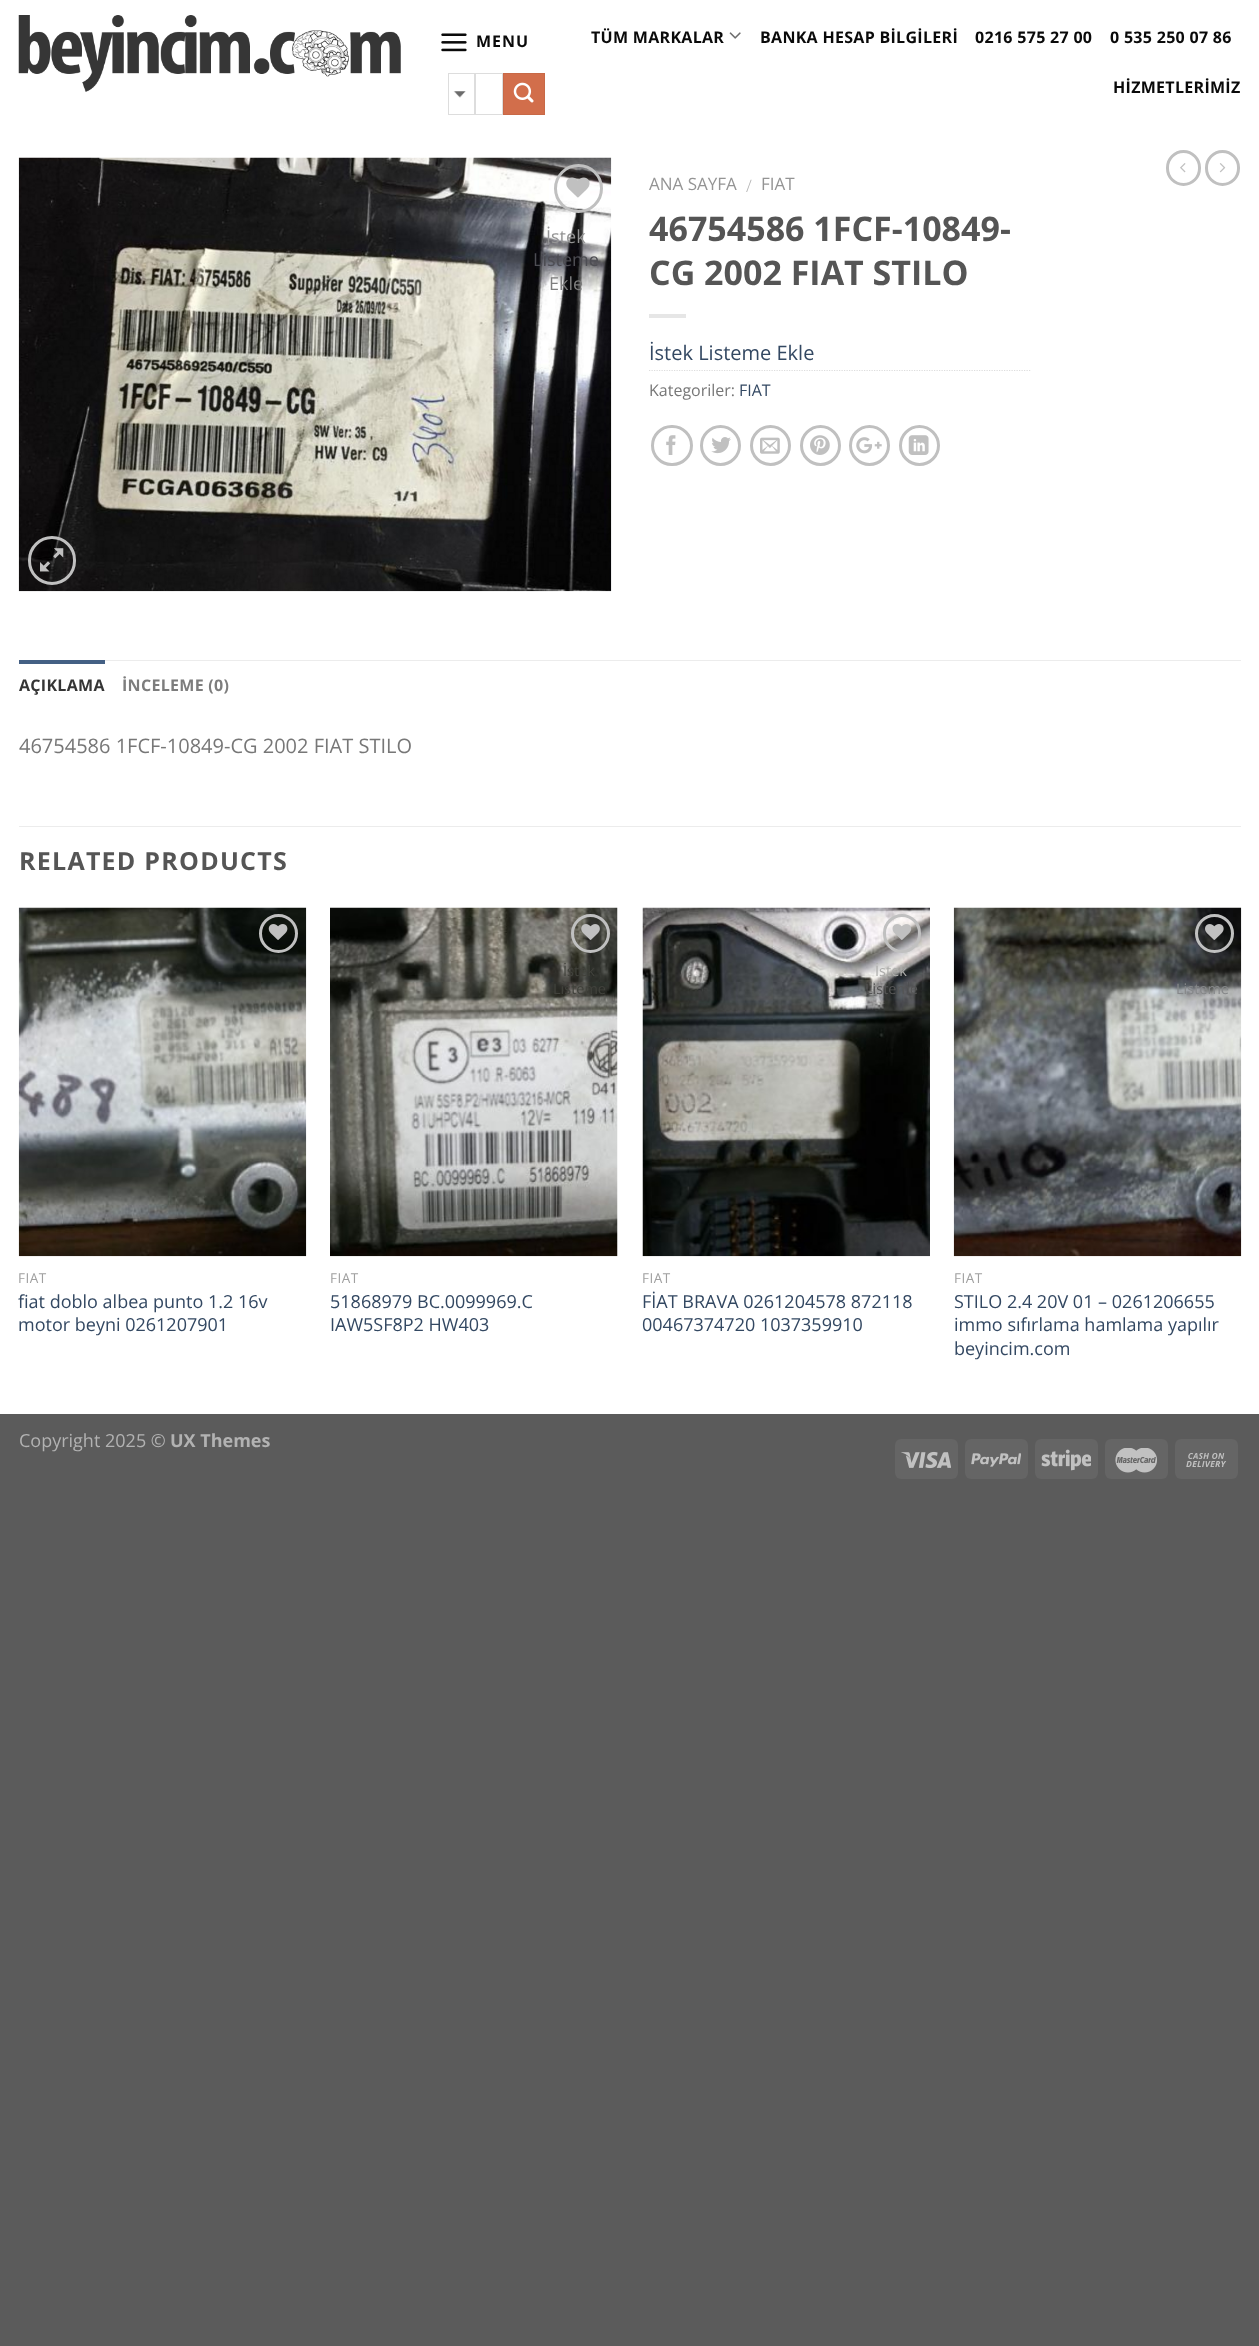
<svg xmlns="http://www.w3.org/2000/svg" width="1259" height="2346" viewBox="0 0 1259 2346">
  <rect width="100%" height="100%" fill="rgb(91,91,91)"/>
  <rect x="0" y="0" width="1259" height="1414" fill="rgb(255,255,255)"/>
  <image x="18" y="15" width="383" height="77" href="pic1.png"/>
  <image x="441" y="33" width="26" height="19" href="pic2.png"/>
  <text x="476" y="47" font-family="Open Sans" font-size="16" font-weight="bold" letter-spacing="1" fill="rgb(10,10,10)">MENU</text>
  <image x="453" y="91" width="13" height="7" href="pic3.png"/>
  <rect x="448.5" y="73.5" width="26" height="41" fill="none" stroke="rgb(221,221,221)"/>
  <rect x="475.5" y="73.5" width="27" height="41" fill="none" stroke="rgb(221,221,221)"/>
  <rect x="503.5" y="73.5" width="41" height="41" fill="rgb(210,110,75)" stroke="rgb(200,105,71)"/>
  <image x="513" y="82" width="21" height="21" href="pic4.png"/>
  <text x="591" y="43" font-family="Open Sans" font-size="16" font-weight="bold" letter-spacing="0.3" fill="rgb(10,10,10)">TÜM MARKALAR</text>
  <image x="729" y="32" width="12" height="7" href="pic5.png"/>
  <g font-family="Open Sans" font-size="16" font-weight="bold" letter-spacing="0.3" fill="rgb(10,10,10)">
    <text x="760" y="43">BANKA HESAP BİLGİLERİ</text>
    <text x="975" y="43">0216 575 27 00</text>
    <text x="1110" y="43">0 535 250 07 86</text>
    <text x="1113" y="93">HİZMETLERİMİZ</text>
  </g>
  <rect x="1167.5" y="151.5" width="32" height="33" rx="16" fill="none" stroke="rgb(192,192,192)" stroke-width="3"/>
  <image x="1180" y="163" width="6" height="10" href="pic6.png"/>
  <rect x="1206.5" y="151.5" width="32" height="33" rx="16" fill="none" stroke="rgb(192,192,192)" stroke-width="3"/>
  <image x="1219" y="163" width="7" height="10" href="pic7.png"/>
  <image x="18" y="157" width="594" height="435" href="pic8.png"/>
  <circle cx="578.5" cy="188.5" r="23" fill="none" stroke="rgb(192,192,192)" stroke-width="3"/>
  <image x="566" y="177" width="24" height="21" href="pic9.png"/>
  <text x="546" y="243" font-family="Open Sans" font-size="18" fill="rgb(148,148,148)">İstek</text>
  <text x="533" y="266" font-family="Open Sans" font-size="18" fill="rgb(77,77,83)">Listeme</text>
  <text x="549" y="290" font-family="Open Sans" font-size="18" fill="rgb(125,125,125)">Ekle</text>
  <rect x="29.5" y="537.5" width="45" height="46" rx="22.5" fill="none" stroke="rgb(192,192,192)" stroke-width="3"/>
  <image x="40" y="548" width="24" height="24" href="pic10.png"/>
  <text x="649" y="190" font-family="Open Sans" font-size="17" fill="rgb(148,148,148)">ANA SAYFA</text>
  <text x="746" y="192" font-family="Open Sans" font-size="17" font-weight="300" fill="rgb(178,178,178)">/</text>
  <text x="761" y="190" font-family="Open Sans" font-size="17" fill="rgb(148,148,148)">FIAT</text>
  <g font-family="Open Sans" font-size="34" font-weight="bold" fill="rgb(85,85,85)">
    <text>
      <tspan x="649" y="241">46754586 1FCF-10849-</tspan>
      <tspan x="649" y="285">CG 2002 FIAT STILO</tspan>
    </text>
  </g>
  <rect x="649" y="314" width="37" height="4" fill="rgb(230,230,230)"/>
  <text x="649" y="360" font-family="Open Sans" font-size="20" fill="rgb(51,72,98)">İstek Listeme Ekle</text>
  <path d="M649 370.5H1031" fill="none" stroke="rgb(221,221,221)" stroke-width="1.2" stroke-dasharray="1.25 1.25"/>
  <text x="649" y="396" font-family="Open Sans" font-size="16" fill="rgb(119,119,119)">Kategoriler:</text>
  <text x="739" y="396" font-family="Open Sans" font-size="16" fill="rgb(51,72,98)">FIAT</text>
  <rect x="652.5" y="426.5" width="39" height="38" rx="19" fill="none" stroke="rgb(192,192,192)" stroke-width="3"/>
  <image x="666" y="435" width="10" height="20" href="pic11.png"/>
  <circle cx="720.5" cy="445.5" r="19" fill="none" stroke="rgb(192,192,192)" stroke-width="3"/>
  <image x="711" y="437" width="20" height="17" href="pic12.png"/>
  <circle cx="770.5" cy="445.5" r="19" fill="none" stroke="rgb(192,192,192)" stroke-width="3"/>
  <image x="760" y="437" width="20" height="17" href="pic13.png"/>
  <circle cx="820.5" cy="445.5" r="19" fill="none" stroke="rgb(192,192,192)" stroke-width="3"/>
  <image x="810" y="435" width="20" height="20" href="pic14.png"/>
  <circle cx="869.5" cy="445.5" r="19" fill="none" stroke="rgb(192,192,192)" stroke-width="3"/>
  <image x="856" y="437" width="26" height="17" href="pic15.png"/>
  <circle cx="919.5" cy="445.5" r="19" fill="none" stroke="rgb(192,192,192)" stroke-width="3"/>
  <image x="908" y="435" width="21" height="20" href="pic16.png"/>
  <rect x="105" y="660" width="1136" height="1" fill="rgb(236,236,236)"/>
  <rect x="19" y="660" width="86" height="4" fill="rgb(68,96,132)"/>
  <text x="19" y="691" font-family="Open Sans" font-size="16" font-weight="bold" letter-spacing="0.3" fill="rgb(53,53,53)">AÇIKLAMA</text>
  <text x="122" y="691" font-family="Open Sans" font-size="16" font-weight="bold" letter-spacing="0.3" fill="rgb(125,125,125)">İNCELEME (0)</text>
  <text x="19" y="753" font-family="Open Sans" font-size="20" fill="rgb(119,119,119)">46754586 1FCF-10849-CG 2002 FIAT STILO</text>
  <rect x="19" y="826" width="1222" height="1" fill="rgb(236,236,236)"/>
  <text x="19" y="870" font-family="Open Sans" font-size="25" font-weight="bold" letter-spacing="1.25" fill="rgb(85,85,85)">RELATED PRODUCTS</text>
  <image x="18" y="907" width="289" height="350" href="pic17.png"/>
  <circle cx="278.5" cy="933.5" r="18" fill="none" stroke="rgb(192,192,192)" stroke-width="3"/>
  <image x="268" y="924" width="20" height="16" href="pic18.png"/>
  <text x="18" y="1283" font-family="Open Sans" font-size="13.5" letter-spacing="0.5" fill="rgb(160,160,160)">FIAT</text>
  <g font-family="Open Sans" font-size="18" fill="rgb(51,72,98)">
    <text>
      <tspan x="18" y="1308">fiat doblo albea punto 1.2 16v</tspan>
      <tspan x="18" y="1331">motor beyni 0261207901</tspan>
    </text>
  </g>
  <image x="330" y="907" width="288" height="350" href="pic19.png"/>
  <circle cx="590.5" cy="933.5" r="18" fill="none" stroke="rgb(192,192,192)" stroke-width="3"/>
  <image x="581" y="924" width="19" height="16" href="pic20.png"/>
  <g font-family="Open Sans" font-size="14.5" fill="rgb(65,66,60)">
    <text x="563" y="976">İstek</text>
    <text x="553" y="994">Listeme</text>
  </g>
  <text x="330" y="1283" font-family="Open Sans" font-size="13.5" letter-spacing="0.5" fill="rgb(160,160,160)">FIAT</text>
  <g font-family="Open Sans" font-size="18" fill="rgb(51,72,98)">
    <text>
      <tspan x="330" y="1308">51868979 BC.0099969.C</tspan>
      <tspan x="330" y="1331">IAW5SF8P2 HW403</tspan>
    </text>
  </g>
  <image x="642" y="907" width="288" height="350" href="pic21.png"/>
  <rect x="884.5" y="915.5" width="35" height="36" rx="17.5" fill="none" stroke="rgb(192,192,192)" stroke-width="3"/>
  <image x="892" y="924" width="20" height="16" href="pic22.png"/>
  <text x="875" y="976" font-family="Open Sans" font-size="14.5" fill="rgb(173,173,171)">İstek</text>
  <text x="865" y="994" font-family="Open Sans" font-size="14.5" fill="rgb(85,85,85)">Listeme</text>
  <text x="642" y="1283" font-family="Open Sans" font-size="13.5" letter-spacing="0.5" fill="rgb(160,160,160)">FIAT</text>
  <g font-family="Open Sans" font-size="18" fill="rgb(51,72,98)">
    <text>
      <tspan x="642" y="1308">FİAT BRAVA 0261204578 872118</tspan>
      <tspan x="642" y="1331">00467374720 1037359910</tspan>
    </text>
  </g>
  <image x="953" y="907" width="289" height="350" href="pic23.png"/>
  <circle cx="1214.5" cy="933.5" r="18" fill="none" stroke="rgb(192,192,192)" stroke-width="3"/>
  <image x="1205" y="924" width="19" height="16" href="pic24.png"/>
  <text x="1176" y="994" font-family="Open Sans" font-size="14.5" fill="rgb(134,136,138)">Listeme</text>
  <text x="954" y="1283" font-family="Open Sans" font-size="13.5" letter-spacing="0.5" fill="rgb(160,160,160)">FIAT</text>
  <g font-family="Open Sans" font-size="18" fill="rgb(51,72,98)">
    <text>
      <tspan x="954" y="1308">STILO 2.4 20V 01 – 0261206655</tspan>
      <tspan x="954" y="1331">immo sıfırlama hamlama yapılır</tspan>
      <tspan x="954" y="1355">beyincim.com</tspan>
    </text>
  </g>
  <text x="19" y="1447" font-family="Open Sans" font-size="18" fill="rgb(178,178,178)">Copyright 2025 ©</text>
  <text x="170" y="1447" font-family="Open Sans" font-size="18" font-weight="bold" fill="rgb(178,178,178)">UX Themes</text>
  <rect x="895" y="1439" width="63" height="40" rx="6" fill="rgb(101,101,101)"/>
  <image x="901" y="1451" width="50" height="18" href="pic25.png"/>
  <rect x="965" y="1439" width="63" height="40" rx="6" fill="rgb(101,101,101)"/>
  <image x="971" y="1453" width="50" height="14" href="pic26.png"/>
  <rect x="1035" y="1439" width="63" height="40" rx="6" fill="rgb(101,101,101)"/>
  <image x="1041" y="1449" width="50" height="22" href="pic27.png"/>
  <rect x="1105" y="1439" width="63" height="40" rx="6" fill="rgb(101,101,101)"/>
  <image x="1115" y="1448" width="42" height="25" href="pic28.png"/>
  <rect x="1175" y="1439" width="63" height="40" rx="6" fill="rgb(101,101,101)"/>
  <image x="1186" y="1453" width="41" height="14" href="pic29.png"/>
</svg>
